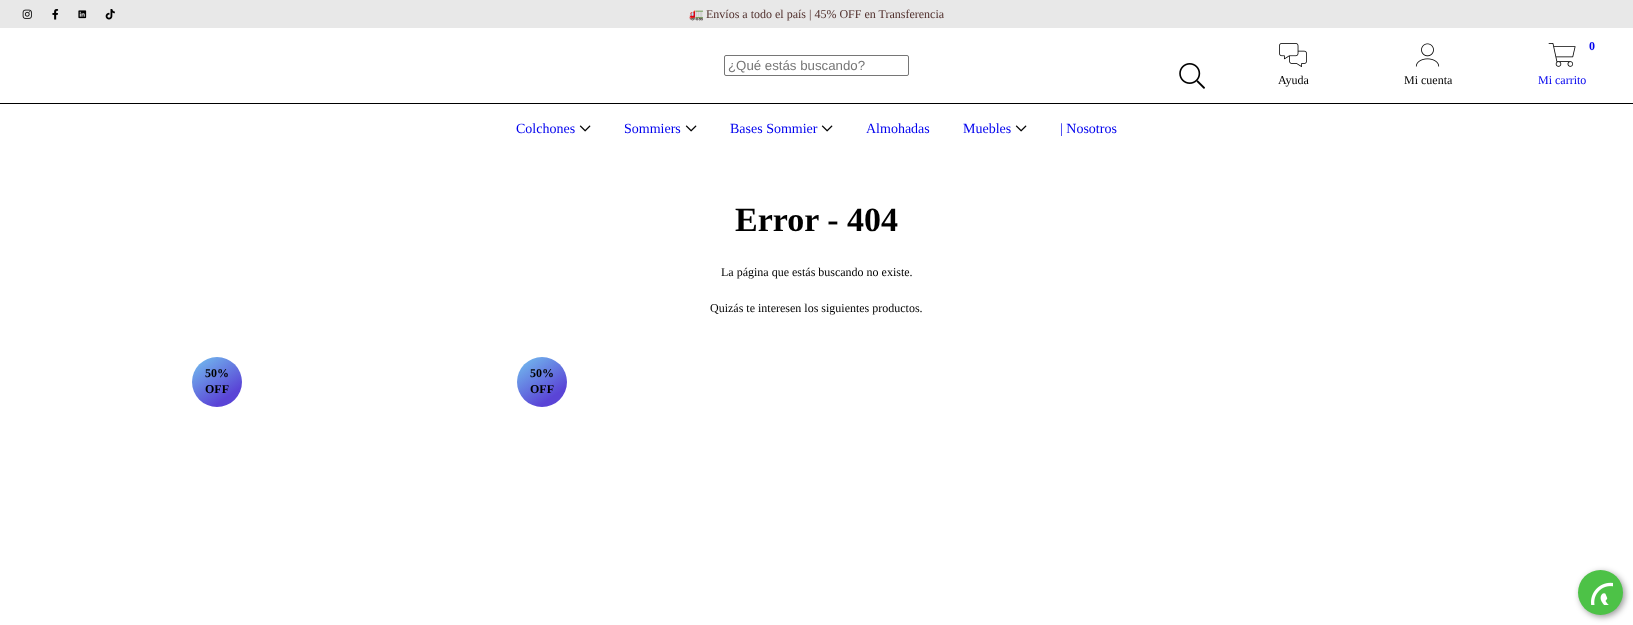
<svg xmlns="http://www.w3.org/2000/svg" width="1633" height="625" viewBox="0 0 1633 625">
  <defs>
    <linearGradient id="g1" gradientUnits="userSpaceOnUse" x1="197" y1="353" x2="237" y2="411"><stop offset="0" stop-color="rgb(116,197,240)"/><stop offset="0.76" stop-color="rgb(90,68,214)"/></linearGradient>
    <linearGradient id="g2" gradientUnits="userSpaceOnUse" x1="522" y1="353" x2="562" y2="411"><stop offset="0" stop-color="rgb(116,197,240)"/><stop offset="0.76" stop-color="rgb(90,68,214)"/></linearGradient>
  </defs>
  <rect width="100%" height="100%" fill="rgb(255,255,255)"/>
  <rect x="0" y="0" width="1633" height="28" fill="rgb(232,232,232)"/>
  <image x="22" y="9" width="10" height="10" href="pic1.png"/>
  <image x="52" y="9" width="7" height="11" href="pic2.png"/>
  <image x="78" y="10" width="9" height="9" href="pic3.png"/>
  <image x="105" y="9" width="10" height="11" href="pic4.png"/>
  <text x="689" y="18" font-family="Noto Color Emoji" font-size="12" fill="rgb(81,48,45)">🚛</text>
  <text x="706" y="18" font-family="Liberation Serif" font-size="12" fill="rgb(81,48,45)">Envíos a todo el país | 45% OFF en Transferencia</text>
  <rect x="724.5" y="55.5" width="184" height="20" rx="1.5" fill="none" stroke="rgb(118,118,118)"/>
  <text x="728" y="70" font-family="Liberation Sans" font-size="13.25" fill="rgb(117,117,117)">¿Qué estás buscando?</text>
  <image x="1179" y="63" width="26" height="26" href="pic5.png"/>
  <image x="1279" y="43" width="28" height="24" href="pic6.png"/>
  <text x="1278" y="84" font-family="Liberation Serif" font-size="12" fill="rgb(0,0,0)">Ayuda</text>
  <image x="1415" y="43" width="25" height="24" href="pic7.png"/>
  <text x="1404" y="84" font-family="Liberation Serif" font-size="12" fill="rgb(0,0,0)">Mi cuenta</text>
  <image x="1548" y="43" width="28" height="24" href="pic8.png"/>
  <text x="1589" y="50" font-family="Liberation Serif" font-size="12" font-weight="bold" fill="rgb(0,0,238)">0</text>
  <text x="1538" y="84" font-family="Liberation Serif" font-size="12" fill="rgb(0,0,238)">Mi carrito</text>
  <rect x="0" y="103" width="1633" height="1" fill="rgb(0,0,0)"/>
  <text x="516" y="133" font-family="Liberation Serif" font-size="14" fill="rgb(0,0,238)">Colchones</text>
  <image x="579" y="125" width="12" height="7" href="pic9.png"/>
  <text x="624" y="133" font-family="Liberation Serif" font-size="14" fill="rgb(0,0,238)">Sommiers</text>
  <image x="685" y="125" width="12" height="7" href="pic9.png"/>
  <text x="730" y="133" font-family="Liberation Serif" font-size="14" fill="rgb(0,0,238)">Bases Sommier</text>
  <image x="821" y="125" width="12" height="7" href="pic9.png"/>
  <g font-family="Liberation Serif" font-size="14" fill="rgb(0,0,238)">
    <text x="866" y="133">Almohadas</text>
    <text x="963" y="133">Muebles</text>
  </g>
  <image x="1015" y="125" width="12" height="7" href="pic9.png"/>
  <text x="1060" y="133" font-family="Liberation Serif" font-size="14" fill="rgb(0,0,238)">| Nosotros</text>
  <text x="735" y="231" font-family="Liberation Serif" font-size="34" font-weight="bold" fill="rgb(0,0,0)">Error - 404</text>
  <g font-family="Liberation Serif" font-size="12" fill="rgb(0,0,0)">
    <text x="721" y="276">La página que estás buscando no existe.</text>
    <text x="710" y="312">Quizás te interesen los siguientes productos.</text>
  </g>
  <circle cx="217" cy="382" r="25" fill="url(#g1)"/>
  <g font-family="Liberation Serif" font-size="12" font-weight="bold" fill="rgb(0,0,0)">
    <text>
      <tspan x="205" y="377">50%</tspan>
      <tspan x="205" y="393">OFF</tspan>
    </text>
  </g>
  <circle cx="542" cy="382" r="25" fill="url(#g2)"/>
  <g font-family="Liberation Serif" font-size="12" font-weight="bold" fill="rgb(0,0,0)">
    <text>
      <tspan x="530" y="377">50%</tspan>
      <tspan x="530" y="393">OFF</tspan>
    </text>
  </g>
  <rect x="1580" y="572" width="45" height="45" rx="22.5" fill="rgba(0,0,0,0.4)" filter="blur(3px)"/>
  <circle cx="1600.5" cy="592.5" r="22.5" fill="rgb(77,194,71)"/>
  <image x="1591" y="582" width="22" height="23" href="pic10.png"/>
</svg>
